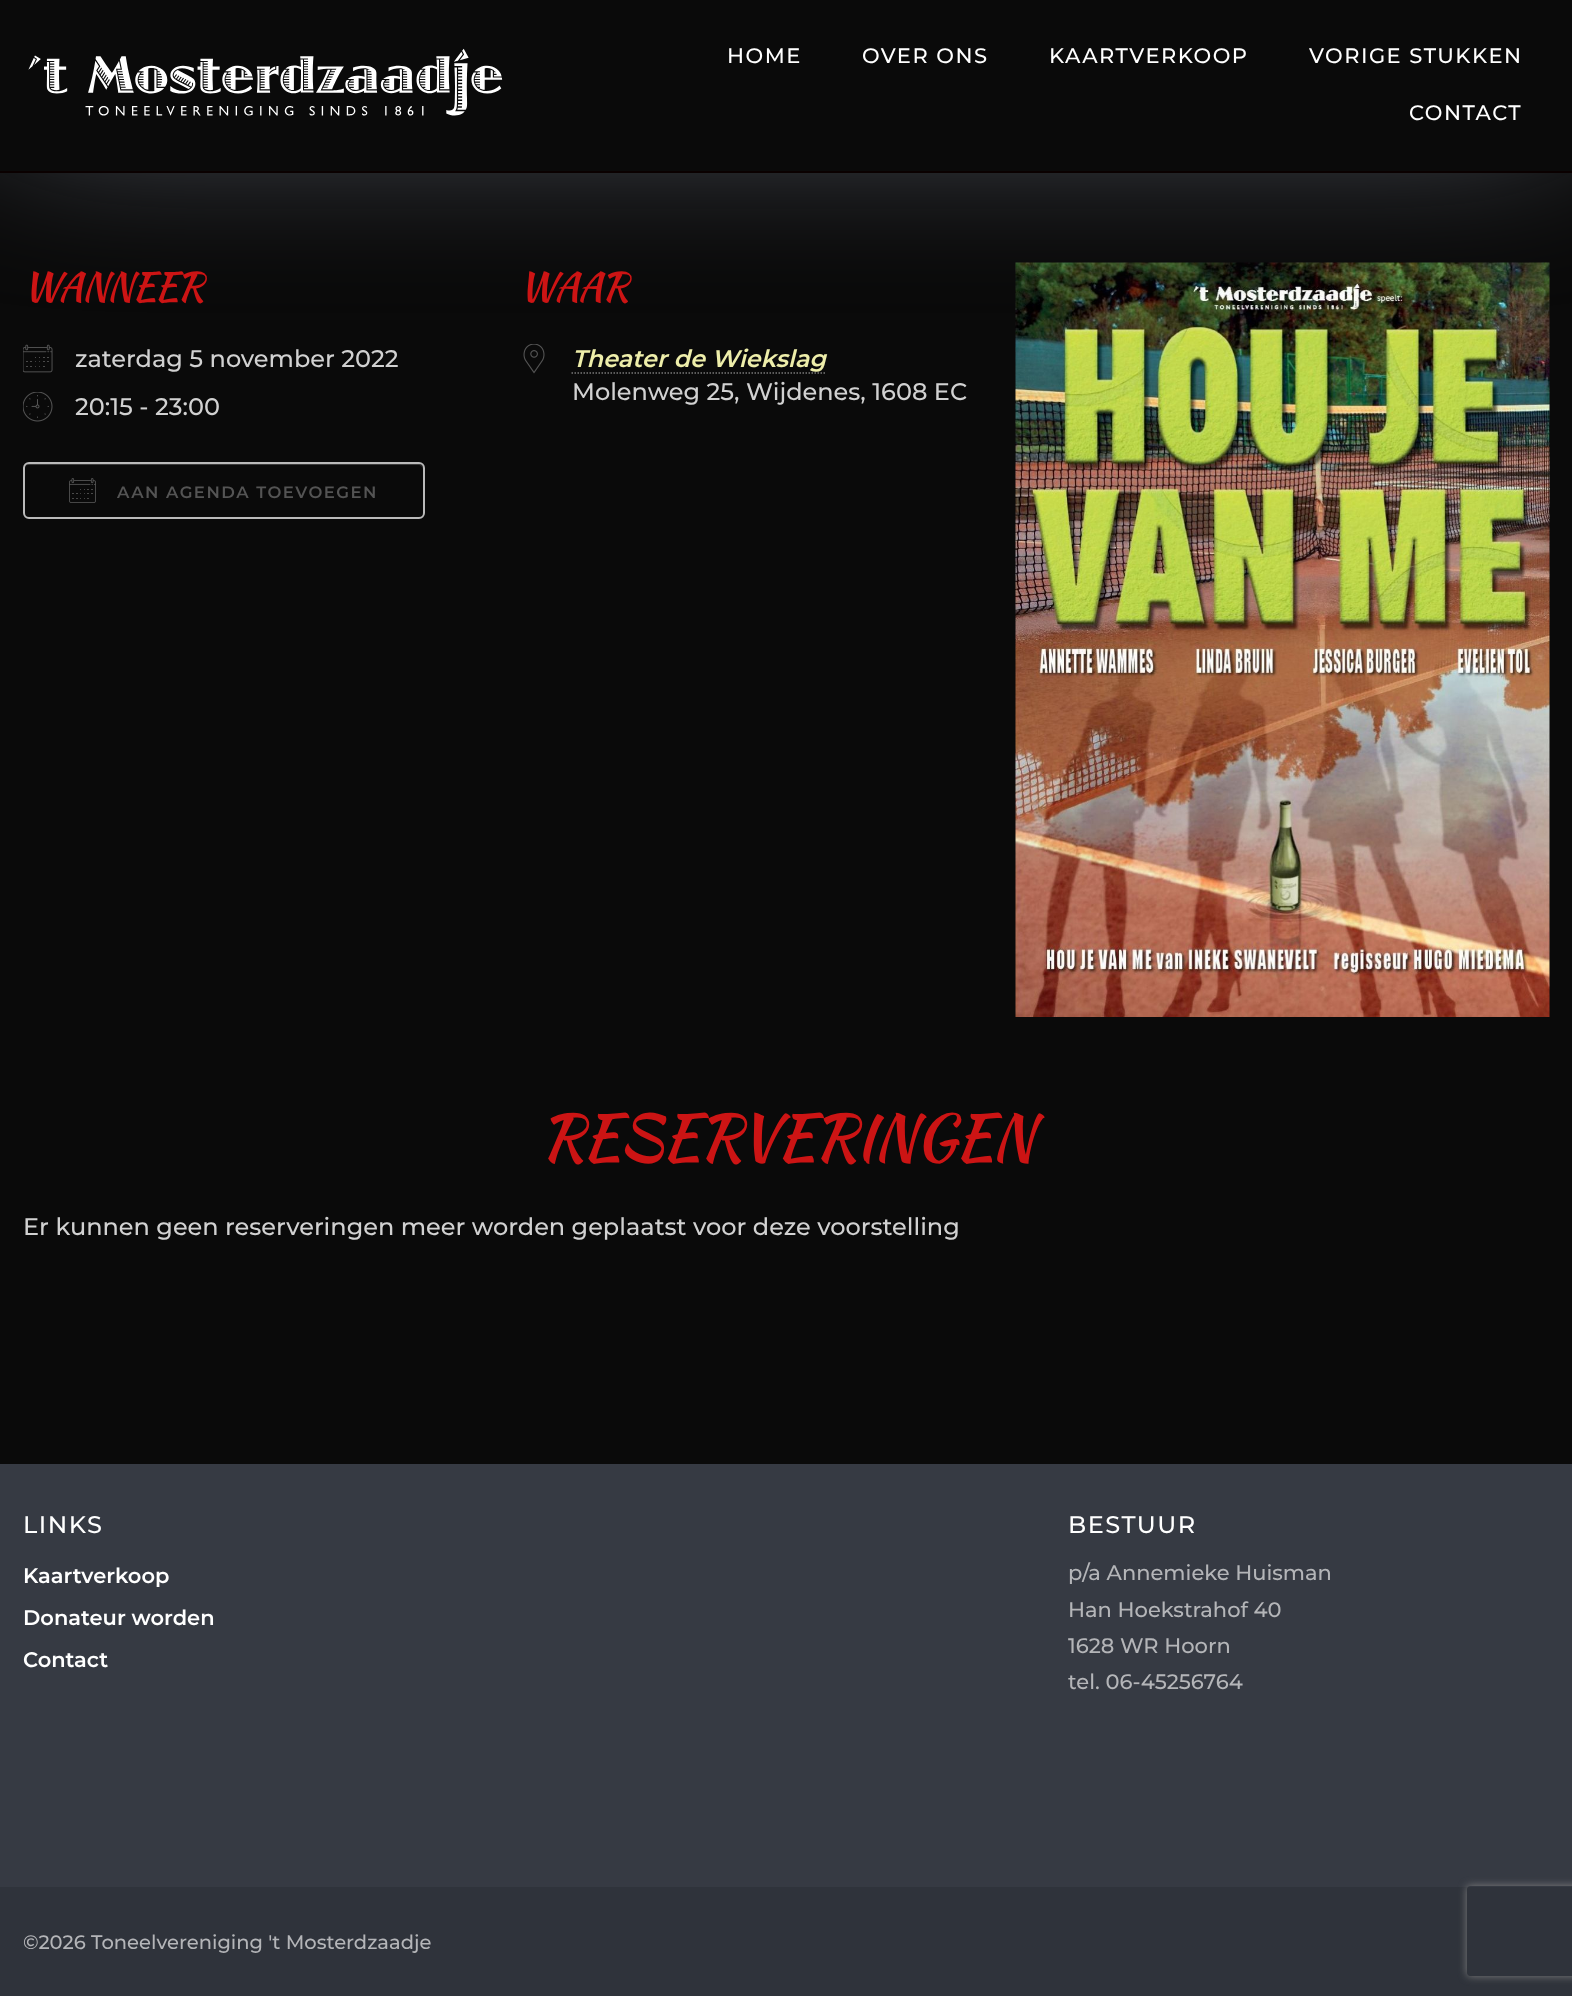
<svg xmlns="http://www.w3.org/2000/svg" width="1572" height="1996" viewBox="0 0 1572 1996">
  <defs>
    <clipPath id="clip1"><path d="M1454 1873H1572V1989H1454ZM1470 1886H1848C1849.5 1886 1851 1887.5 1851 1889V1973C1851 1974.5 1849.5 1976 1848 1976H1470C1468.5 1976 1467 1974.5 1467 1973V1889C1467 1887.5 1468.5 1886 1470 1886Z" clip-rule="evenodd"/></clipPath>
  </defs>
  <rect width="100%" height="100%" fill="rgb(10,10,10)"/>
  <image x="23" y="344" width="30" height="29" href="pic2.png"/>
  <image x="523" y="344" width="22" height="30" href="pic5.png"/>
  <image x="1015" y="262" width="535" height="755" href="pic6.png"/>
  <rect x="0" y="-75" width="1572" height="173" fill="rgb(130,137,153)" filter="blur(90px)"/>
  <rect x="0" y="0" width="1572" height="171" fill="rgb(10,10,10)"/>
  <rect x="0" y="171" width="1572" height="2" fill="rgb(10,0,0)"/>
  <image x="28" y="48" width="475" height="68" href="pic1.png"/>
  <g font-family="Montserrat" font-size="21" font-weight="500" letter-spacing="1.5" fill="rgb(255,255,255)">
    <text x="727" y="63">HOME</text>
    <text x="862" y="63">OVER ONS</text>
    <text x="1049" y="63">KAARTVERKOOP</text>
    <text x="1309" y="63">VORIGE STUKKEN</text>
    <text x="1409" y="120">CONTACT</text>
  </g>
  <text x="23" y="300" font-family="Kaushan Script" font-size="39" letter-spacing="-1.5" fill="rgb(204,20,20)">WANNEER</text>
  <text x="75" y="367" font-family="Montserrat" font-size="24" font-weight="500" fill="rgb(209,209,209)">zaterdag 5 november 2022</text>
  <image x="23" y="392" width="30" height="30" href="pic3.png"/>
  <text x="75" y="415" font-family="Montserrat" font-size="24" font-weight="500" fill="rgb(209,209,209)">20:15 - 23:00</text>
  <path d="M28 465H418C421 465 423 467 423 470V469C423 466 421 464 418 464H29C26 464 24 466 24 469V470C24 467 26 465 28 465Z" fill="rgb(59,59,59)"/>
  <rect x="24" y="463" width="400" height="55" rx="5" fill="none" stroke="rgb(186,186,186)" stroke-width="2"/>
  <image x="69" y="478" width="27" height="25" href="pic4.png"/>
  <text x="117" y="498" font-family="Montserrat" font-size="16.5" font-weight="600" letter-spacing="1.5" fill="rgb(84,84,84)">AAN AGENDA TOEVOEGEN</text>
  <text x="519" y="300" font-family="Kaushan Script" font-size="39" letter-spacing="-1.5" fill="rgb(204,20,20)">WAAR</text>
  <text x="572" y="367" font-family="Montserrat" font-size="24" font-weight="600" font-style="italic" fill="rgb(238,238,170)">Theater de Wiekslag</text>
  <path d="M571.5 373H825.5" fill="none" stroke="rgb(120,120,120)" stroke-width="1.5" stroke-dasharray="1.5 1.5"/>
  <text x="572" y="400" font-family="Montserrat" font-size="24" font-weight="500" fill="rgb(209,209,209)">Molenweg 25, Wijdenes, 1608 EC</text>
  <text x="540" y="1159" font-family="Kaushan Script" font-size="63" letter-spacing="-1.5" fill="rgb(204,20,20)">RESERVERINGEN</text>
  <text x="23" y="1235" font-family="Montserrat" font-size="24" font-weight="500" fill="rgb(209,209,209)">Er kunnen geen reserveringen meer worden geplaatst voor deze voorstelling</text>
  <rect x="0" y="1464" width="1572" height="423" fill="rgb(54,58,67)"/>
  <text x="23" y="1533" font-family="Montserrat" font-size="24" font-weight="500" letter-spacing="1.5" fill="rgb(255,255,255)">LINKS</text>
  <g font-family="Montserrat" font-size="21" font-weight="600" fill="rgb(255,255,255)">
    <text x="23" y="1583">Kaartverkoop</text>
    <text x="23" y="1625">Donateur worden</text>
    <text x="23" y="1667">Contact</text>
  </g>
  <text x="1068" y="1533" font-family="Montserrat" font-size="24" font-weight="500" letter-spacing="1.5" fill="rgb(255,255,255)">BESTUUR</text>
  <g font-family="Montserrat" font-size="21" font-weight="500" fill="rgb(180,181,184)">
    <text>
      <tspan x="1068" y="1580">p/a Annemieke Huisman</tspan>
      <tspan x="1068" y="1617">Han Hoekstrahof 40</tspan>
      <tspan x="1068" y="1653">1628 WR Hoorn</tspan>
      <tspan x="1068" y="1689">tel. 06-45256764</tspan>
    </text>
  </g>
  <rect x="0" y="1887" width="1572" height="109" fill="rgb(47,51,59)"/>
  <text x="23" y="1949" font-family="Montserrat" font-size="19.5" font-weight="500" fill="rgb(180,181,184)">©2026 Toneelvereniging 't Mosterdzaadje</text>
  <g clip-path="url(#clip1)">
    <rect x="1467" y="1886" width="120" height="90" rx="3" fill="rgb(128,128,128)" filter="blur(4px)"/>
  </g>
</svg>
